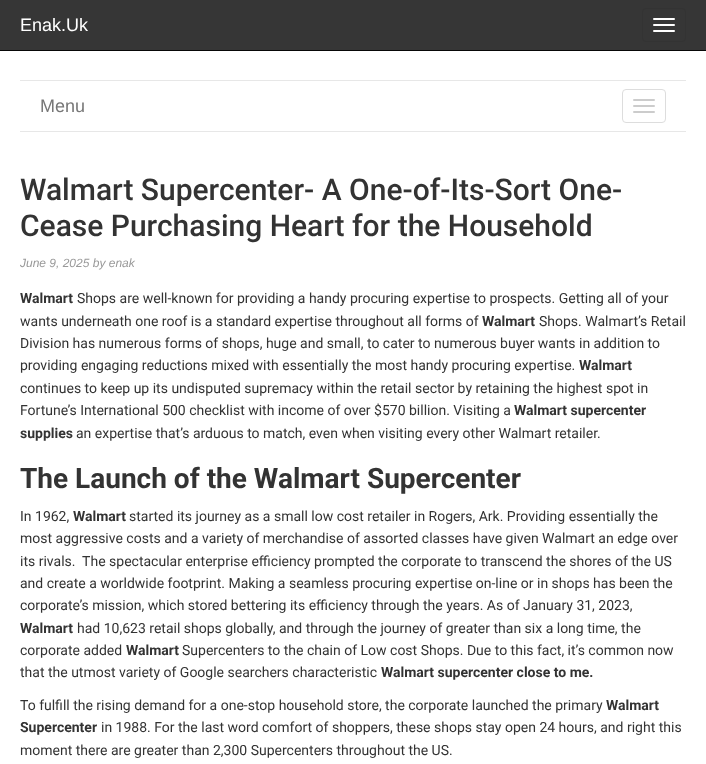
<svg xmlns="http://www.w3.org/2000/svg" width="706" height="764" viewBox="0 0 706 764">
  <rect width="100%" height="100%" fill="rgb(255,255,255)"/>
  <rect x="0" y="0" width="706" height="50" fill="rgb(54,54,54)"/>
  <rect x="0" y="50" width="706" height="1" fill="rgb(8,8,8)"/>
  <text x="20" y="31" font-family="Liberation Sans" font-size="18" fill="rgb(255,255,255)">Enak.Uk</text>
  <rect x="642.5" y="8.5" width="43" height="33" rx="3.5" fill="none" stroke="rgb(51,51,51)"/>
  <rect x="653" y="18" width="22" height="2" rx="1" fill="rgb(255,255,255)"/>
  <rect x="653" y="24" width="22" height="2" rx="1" fill="rgb(255,255,255)"/>
  <rect x="653" y="30" width="22" height="2" rx="1" fill="rgb(255,255,255)"/>
  <rect x="20" y="80" width="666" height="1" fill="rgb(231,231,231)"/>
  <rect x="20" y="131" width="666" height="1" fill="rgb(231,231,231)"/>
  <text x="40" y="112" font-family="Liberation Sans" font-size="18" fill="rgb(119,119,119)">Menu</text>
  <rect x="622.5" y="89.5" width="43" height="33" rx="3.5" fill="none" stroke="rgb(221,221,221)"/>
  <rect x="633" y="99" width="22" height="2" rx="1" fill="rgb(204,204,204)"/>
  <rect x="633" y="105" width="22" height="2" rx="1" fill="rgb(204,204,204)"/>
  <rect x="633" y="111" width="22" height="2" rx="1" fill="rgb(204,204,204)"/>
  <g font-family="Roboto" font-size="30" font-weight="500" fill="rgb(51,51,51)">
    <text>
      <tspan x="20" y="200">Walmart Supercenter- A One-of-Its-Sort One-</tspan>
      <tspan x="20" y="236">Cease Purchasing Heart for the Household</tspan>
    </text>
  </g>
  <text x="20" y="267" font-family="Liberation Sans" font-size="12" font-style="italic" fill="rgb(153,153,153)">June 9, 2025 by enak</text>
  <text x="20" y="303" font-family="Roboto" font-size="14" font-weight="bold" fill="rgb(51,51,51)">Walmart</text>
  <g font-family="Roboto" font-size="14" fill="rgb(51,51,51)">
    <text x="77" y="303">Shops are well-known for providing a handy procuring expertise to prospects. Getting all of your</text>
    <text x="20" y="326">wants underneath one roof is a standard expertise throughout all forms of</text>
  </g>
  <text x="482" y="326" font-family="Roboto" font-size="14" font-weight="bold" fill="rgb(51,51,51)">Walmart</text>
  <g font-family="Roboto" font-size="14" fill="rgb(51,51,51)">
    <text x="539" y="326">Shops. Walmart’s Retail</text>
    <text>
      <tspan x="20" y="348">Division has numerous forms of shops, huge and small, to cater to numerous buyer wants in addition to</tspan>
      <tspan x="20" y="370">providing engaging reductions mixed with essentially the most handy procuring expertise.</tspan>
    </text>
  </g>
  <text x="579" y="370" font-family="Roboto" font-size="14" font-weight="bold" fill="rgb(51,51,51)">Walmart</text>
  <g font-family="Roboto" font-size="14" fill="rgb(51,51,51)">
    <text>
      <tspan x="20" y="393">continues to keep up its undisputed supremacy within the retail sector by retaining the highest spot in</tspan>
      <tspan x="20" y="415">Fortune’s International 500 checklist with income of over $570 billion. Visiting a</tspan>
    </text>
  </g>
  <g font-family="Roboto" font-size="14" font-weight="bold" fill="rgb(51,51,51)">
    <text x="514" y="415">Walmart supercenter</text>
    <text x="20" y="438">supplies</text>
  </g>
  <text x="76" y="438" font-family="Roboto" font-size="14" fill="rgb(51,51,51)">an expertise that’s arduous to match, even when visiting every other Walmart retailer.</text>
  <text x="20" y="488" font-family="Roboto" font-size="28" font-weight="bold" fill="rgb(51,51,51)">The Launch of the Walmart Supercenter</text>
  <text x="20" y="521" font-family="Roboto" font-size="14" fill="rgb(51,51,51)">In 1962,</text>
  <text x="73" y="521" font-family="Roboto" font-size="14" font-weight="bold" fill="rgb(51,51,51)">Walmart</text>
  <g font-family="Roboto" font-size="14" fill="rgb(51,51,51)">
    <text x="129" y="521">started its journey as a small low cost retailer in Rogers, Ark. Providing essentially the</text>
    <text xml:space="preserve"><tspan x="20" y="543">most aggressive costs and a variety of merchandise of assorted classes have given Walmart an edge over</tspan><tspan x="20" y="566">its rivals.  The spectacular enterprise efficiency prompted the corporate to transcend the shores of the US</tspan><tspan x="20" y="588">and create a worldwide footprint. Making a seamless procuring expertise on-line or in shops has been the</tspan><tspan x="20" y="610">corporate’s mission, which stored bettering its efficiency through the years. As of January 31, 2023,</tspan></text>
  </g>
  <text x="20" y="633" font-family="Roboto" font-size="14" font-weight="bold" fill="rgb(51,51,51)">Walmart</text>
  <g font-family="Roboto" font-size="14" fill="rgb(51,51,51)">
    <text x="77" y="633">had 10,623 retail shops globally, and through the journey of greater than six a long time, the</text>
    <text x="20" y="655">corporate added</text>
  </g>
  <text x="126" y="655" font-family="Roboto" font-size="14" font-weight="bold" fill="rgb(51,51,51)">Walmart</text>
  <g font-family="Roboto" font-size="14" fill="rgb(51,51,51)">
    <text x="182" y="655">Supercenters to the chain of Low cost Shops. Due to this fact, it’s common now</text>
    <text x="20" y="677">that the utmost variety of Google searchers characteristic</text>
  </g>
  <text x="381" y="677" font-family="Roboto" font-size="14" font-weight="bold" fill="rgb(51,51,51)">Walmart supercenter close to me.</text>
  <text x="20" y="710" font-family="Roboto" font-size="14" fill="rgb(51,51,51)">To fulfill the rising demand for a one-stop household store, the corporate launched the primary</text>
  <g font-family="Roboto" font-size="14" font-weight="bold" fill="rgb(51,51,51)">
    <text x="606" y="710">Walmart</text>
    <text x="20" y="732">Supercenter</text>
  </g>
  <g font-family="Roboto" font-size="14" fill="rgb(51,51,51)">
    <text x="101" y="732">in 1988. For the last word comfort of shoppers, these shops stay open 24 hours, and right this</text>
    <text x="20" y="755">moment there are greater than 2,300 Supercenters throughout the US.</text>
  </g>
</svg>
